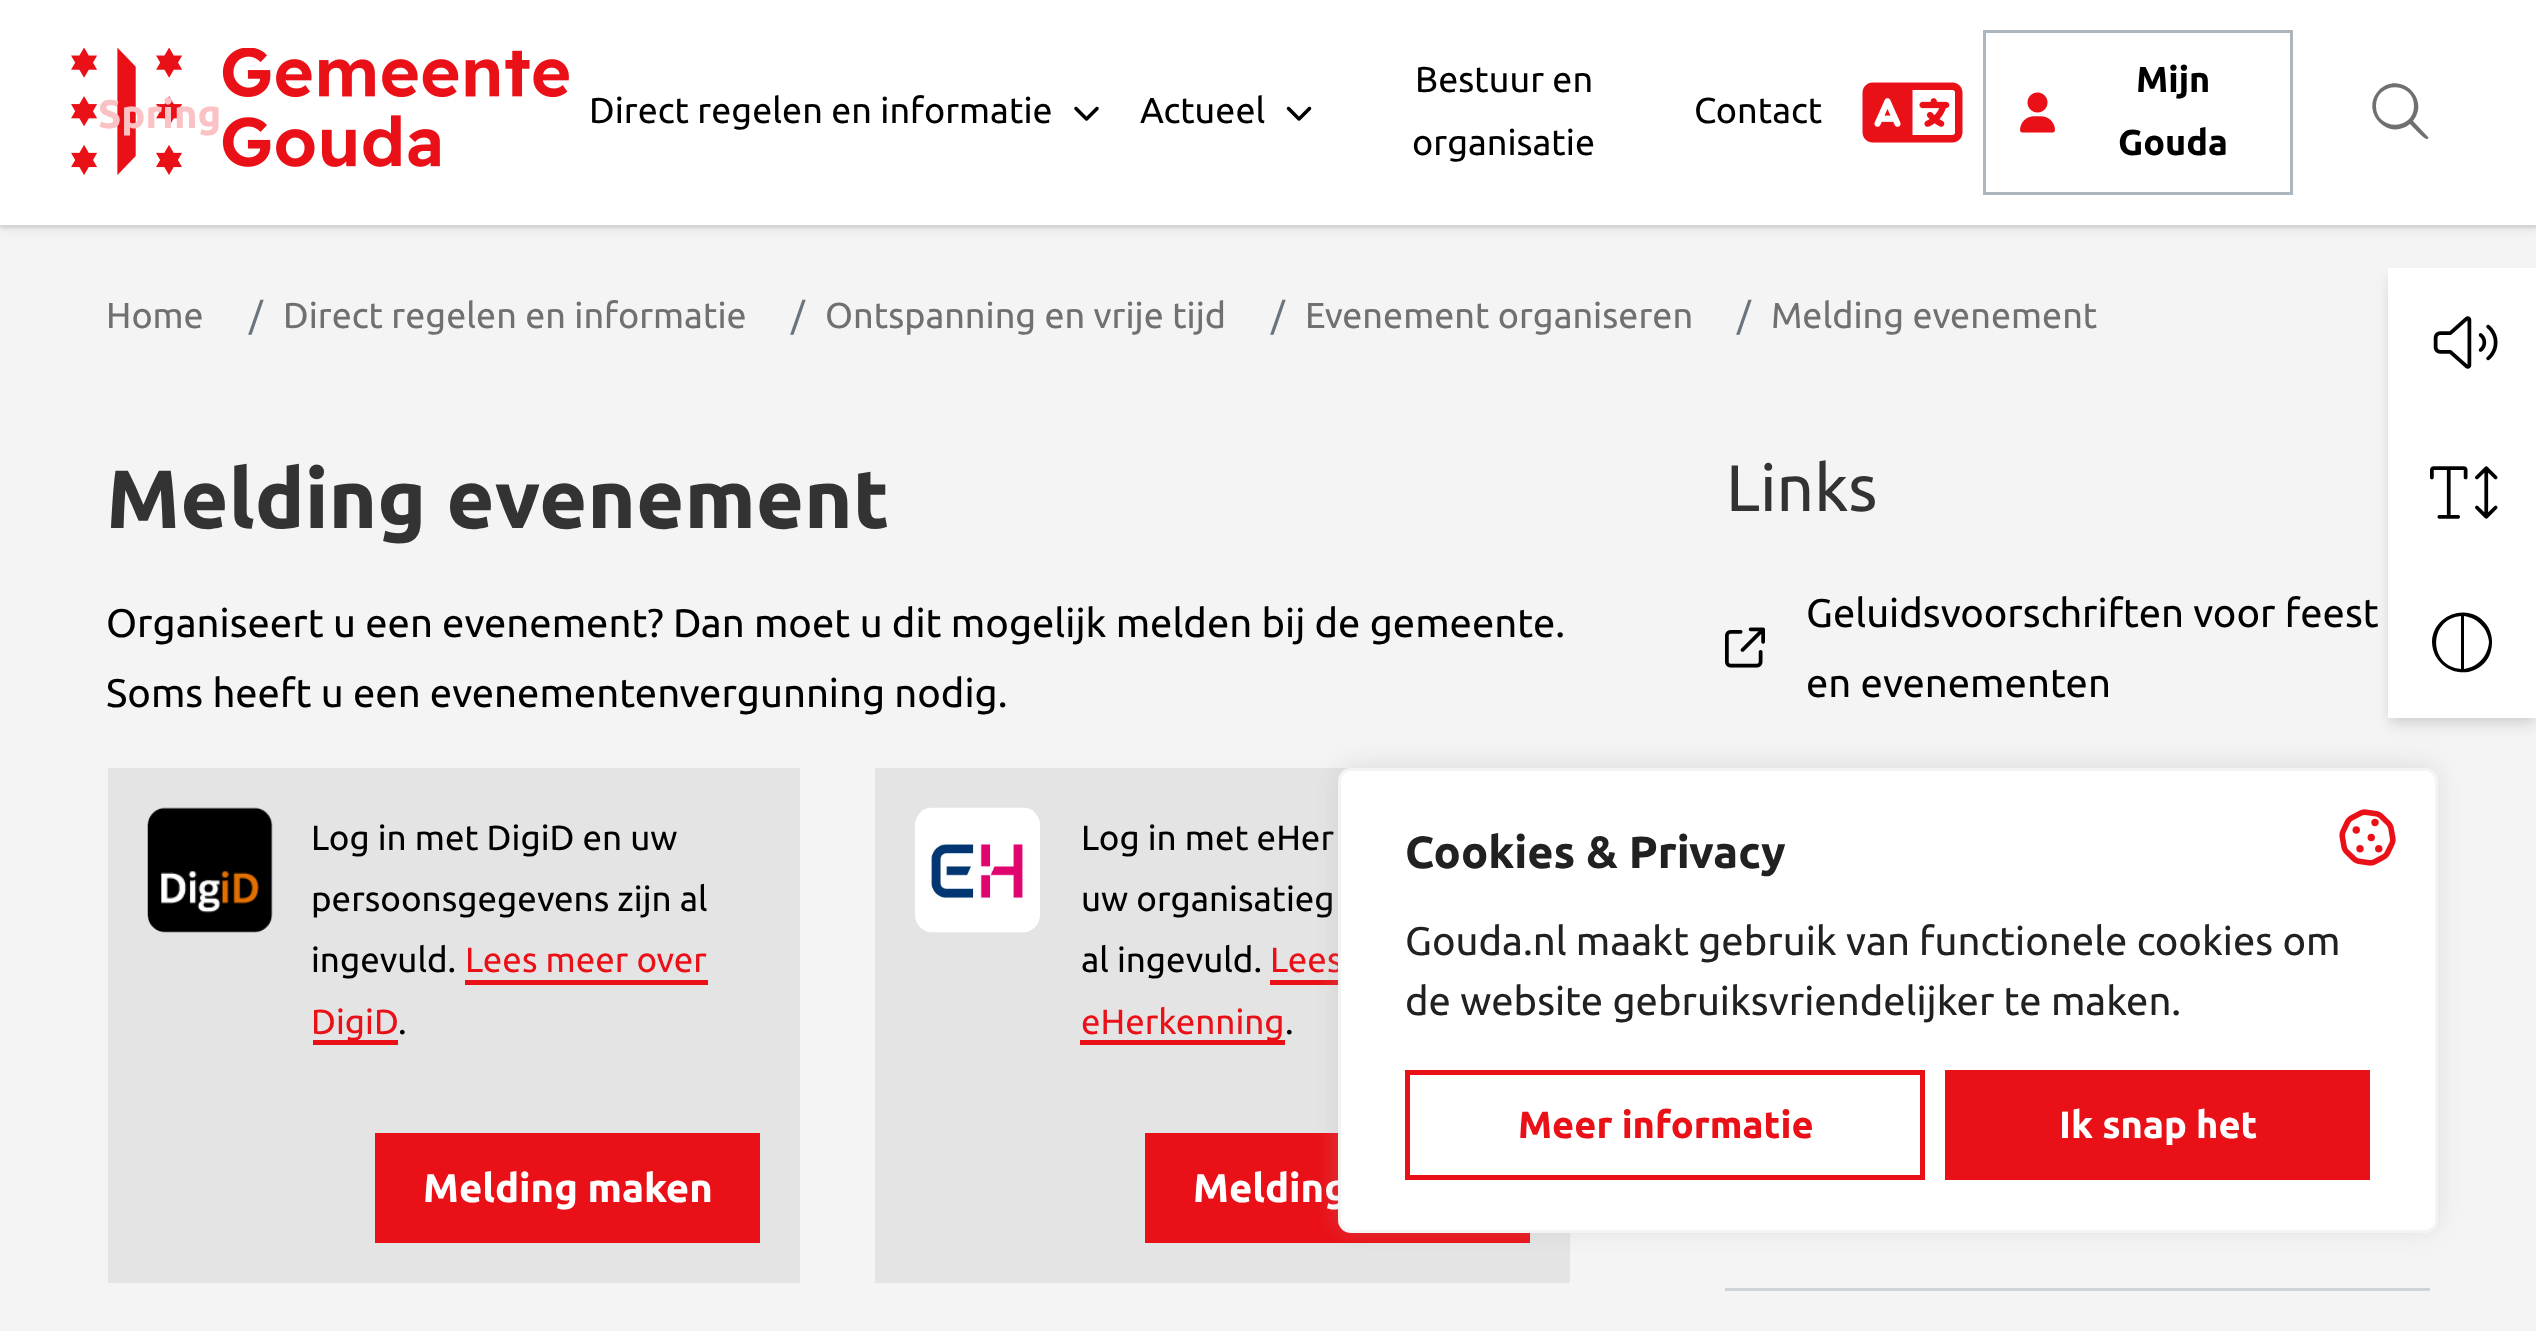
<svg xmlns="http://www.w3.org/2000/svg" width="2536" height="1331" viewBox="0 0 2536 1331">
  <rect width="100%" height="100%" fill="rgb(244,244,244)"/>
  <rect x="0" y="3" width="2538" height="225" fill="rgba(40,44,53,0.1)" filter="blur(1px)"/>
  <rect x="0" y="5" width="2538" height="225" fill="rgba(40,44,53,0.08)" filter="blur(4px)"/>
  <rect x="0" y="0" width="2536" height="225" fill="rgb(255,255,255)"/>
  <image x="71" y="48" width="498" height="127" href="pic1.png"/>
  <text x="98" y="128" font-family="Ubuntu" font-size="40" font-weight="bold" fill="rgb(250,194,196)">Spring</text>
  <text x="589" y="123" font-family="Ubuntu" font-size="36" fill="rgb(0,0,0)">Direct regelen en informatie</text>
  <image x="1074" y="106" width="25" height="15" href="pic2.png"/>
  <text x="1140" y="123" font-family="Ubuntu" font-size="36" fill="rgb(0,0,0)">Actueel</text>
  <image x="1286" y="106" width="26" height="15" href="pic3.png"/>
  <g font-family="Ubuntu" font-size="36" fill="rgb(0,0,0)">
    <text x="1415" y="92">Bestuur en</text>
    <text x="1412" y="155">organisatie</text>
    <text x="1694" y="123">Contact</text>
  </g>
  <image x="1862" y="82" width="101" height="61" href="pic4.png"/>
  <rect x="1984.5" y="31.5" width="307" height="162" fill="none" stroke="rgb(173,181,189)" stroke-width="3"/>
  <image x="2020" y="92" width="35" height="41" href="pic5.png"/>
  <g font-family="Ubuntu" font-size="36" font-weight="bold" fill="rgb(0,0,0)">
    <text x="2136" y="92">Mijn</text>
    <text x="2118" y="155">Gouda</text>
  </g>
  <path d="M2414 106C2414 81 2376 81 2376 106C2376 131 2414 131 2414 106ZM2410 124C2388 142 2359 111 2379 90C2400 70 2431 99 2413 121L2428 137C2429 138 2428 139 2427 139C2425 140 2412 126 2410 124Z" fill="rgb(112,112,112)"/>
  <text x="106" y="328" font-family="Ubuntu" font-size="36" fill="rgb(112,112,112)">Home</text>
  <text x="249" y="328" font-family="Ubuntu" font-size="36" fill="rgb(108,117,125)">/</text>
  <text x="283" y="328" font-family="Ubuntu" font-size="36" fill="rgb(112,112,112)">Direct regelen en informatie</text>
  <text x="791" y="328" font-family="Ubuntu" font-size="36" fill="rgb(108,117,125)">/</text>
  <text x="825" y="328" font-family="Ubuntu" font-size="36" fill="rgb(112,112,112)">Ontspanning en vrije tijd</text>
  <text x="1271" y="328" font-family="Ubuntu" font-size="36" fill="rgb(108,117,125)">/</text>
  <text x="1305" y="328" font-family="Ubuntu" font-size="36" fill="rgb(112,112,112)">Evenement organiseren</text>
  <text x="1737" y="328" font-family="Ubuntu" font-size="36" fill="rgb(108,117,125)">/</text>
  <text x="1771" y="328" font-family="Ubuntu" font-size="36" fill="rgb(112,112,112)">Melding evenement</text>
  <text x="106" y="528" font-family="Ubuntu" font-size="82.75" font-weight="bold" fill="rgb(51,51,51)">Melding evenement</text>
  <g font-family="Ubuntu" font-size="40" fill="rgb(0,0,0)">
    <text>
      <tspan x="106" y="637">Organiseert u een evenement? Dan moet u dit mogelijk melden bij de gemeente.</tspan>
      <tspan x="106" y="707">Soms heeft u een evenementenvergunning nodig.</tspan>
    </text>
  </g>
  <rect x="108" y="768" width="692" height="515" fill="rgb(228,228,228)"/>
  <image x="147" y="807" width="126" height="126" href="pic6.png"/>
  <g font-family="Ubuntu" font-size="35" fill="rgb(0,0,0)">
    <text>
      <tspan x="311" y="850">Log in met DigiD en uw</tspan>
      <tspan x="311" y="911">persoonsgegevens zijn al</tspan>
      <tspan x="311" y="972">ingevuld.</tspan>
    </text>
  </g>
  <text x="465" y="972" font-family="Ubuntu" font-size="35" fill="rgb(234,16,23)">Lees meer over</text>
  <rect x="465" y="980" width="243" height="5" fill="rgb(234,16,23)"/>
  <rect x="313" y="1040" width="85" height="5" fill="rgb(234,16,23)"/>
  <text x="311" y="1034" font-family="Ubuntu" font-size="35" fill="rgb(234,16,23)">DigiD</text>
  <text x="398" y="1034" font-family="Ubuntu" font-size="35" fill="rgb(0,0,0)">.</text>
  <rect x="375" y="1133" width="385" height="110" fill="rgb(234,16,23)"/>
  <text x="423" y="1202" font-family="Ubuntu" font-size="40" font-weight="bold" fill="rgb(255,255,255)">Melding maken</text>
  <rect x="875" y="768" width="695" height="515" fill="rgb(228,228,228)"/>
  <image x="915" y="807" width="125" height="126" href="pic7.png"/>
  <g font-family="Ubuntu" font-size="35" fill="rgb(0,0,0)">
    <text>
      <tspan x="1081" y="850">Log in met eHer</tspan>
      <tspan x="1081" y="911">uw organisatieg</tspan>
      <tspan x="1081" y="972">al ingevuld.</tspan>
    </text>
  </g>
  <text x="1270" y="972" font-family="Ubuntu" font-size="35" fill="rgb(234,16,23)">Lees</text>
  <rect x="1270" y="980" width="68" height="5" fill="rgb(234,16,23)"/>
  <rect x="1080" y="1040" width="205" height="5" fill="rgb(234,16,23)"/>
  <text x="1081" y="1034" font-family="Ubuntu" font-size="35" fill="rgb(234,16,23)">eHerkenning</text>
  <text x="1285" y="1034" font-family="Ubuntu" font-size="35" fill="rgb(0,0,0)">.</text>
  <rect x="1145" y="1133" width="385" height="110" fill="rgb(234,16,23)"/>
  <text x="1193" y="1202" font-family="Ubuntu" font-size="40" font-weight="bold" fill="rgb(255,255,255)">Melding</text>
  <text x="1726" y="511" font-family="Ubuntu" font-size="65.5" fill="rgb(51,51,51)">Links</text>
  <image x="1725" y="627" width="40" height="41" href="pic8.png"/>
  <g font-family="Ubuntu" font-size="40" fill="rgb(0,0,0)">
    <text>
      <tspan x="1806" y="627">Geluidsvoorschriften voor feest</tspan>
      <tspan x="1806" y="697">en evenementen</tspan>
    </text>
  </g>
  <rect x="1725" y="1288" width="705" height="3" fill="rgb(206,212,218)"/>
  <rect x="2390" y="275" width="145" height="445" fill="rgba(0,0,0,0.06)" filter="blur(5px)"/>
  <rect x="2390" y="280" width="145" height="445" fill="rgba(0,0,0,0.1)" filter="blur(7.5px)"/>
  <rect x="2388" y="268" width="148" height="450" fill="rgb(255,255,255)"/>
  <image x="2433" y="316" width="65" height="53" href="pic9.png"/>
  <image x="2430" y="466" width="68" height="53" href="pic10.png"/>
  <path d="M2461 669V616C2428 619 2428 666 2461 669ZM2489 642C2488 629 2478 618 2464 616V669C2478 667 2488 656 2489 642ZM2432 642C2433 614 2469 602 2486 624C2490 629 2492 636 2492 642C2492 649 2490 656 2486 661C2469 683 2433 671 2432 642Z" fill="rgb(0,0,0)"/>
  <rect x="1338" y="765" width="1100" height="465" rx="13" fill="rgba(172,171,171,0.3)" filter="blur(12.5px)"/>
  <rect x="1339.5" y="769.5" width="1097" height="462" rx="11.5" fill="rgb(255,255,255)" stroke="rgb(244,244,244)" stroke-width="3"/>
  <text x="1405" y="868" font-family="Ubuntu" font-size="45" font-weight="bold" fill="rgb(33,33,33)">Cookies &amp; Privacy</text>
  <image x="2339" y="809" width="57" height="57" href="pic11.png"/>
  <g font-family="Ubuntu" font-size="40" fill="rgb(33,33,33)">
    <text>
      <tspan x="1405" y="955">Gouda.nl maakt gebruik van functionele cookies om</tspan>
      <tspan x="1405" y="1015">de website gebruiksvriendelijker te maken.</tspan>
    </text>
  </g>
  <rect x="1407.5" y="1072.5" width="515" height="105" fill="none" stroke="rgb(234,16,23)" stroke-width="5"/>
  <text x="1518" y="1138" font-family="Ubuntu" font-size="38" font-weight="bold" fill="rgb(234,16,23)">Meer informatie</text>
  <rect x="1945" y="1070" width="425" height="110" fill="rgb(234,16,23)"/>
  <text x="2059" y="1138" font-family="Ubuntu" font-size="38" font-weight="bold" fill="rgb(255,255,255)">Ik snap het</text>
</svg>
